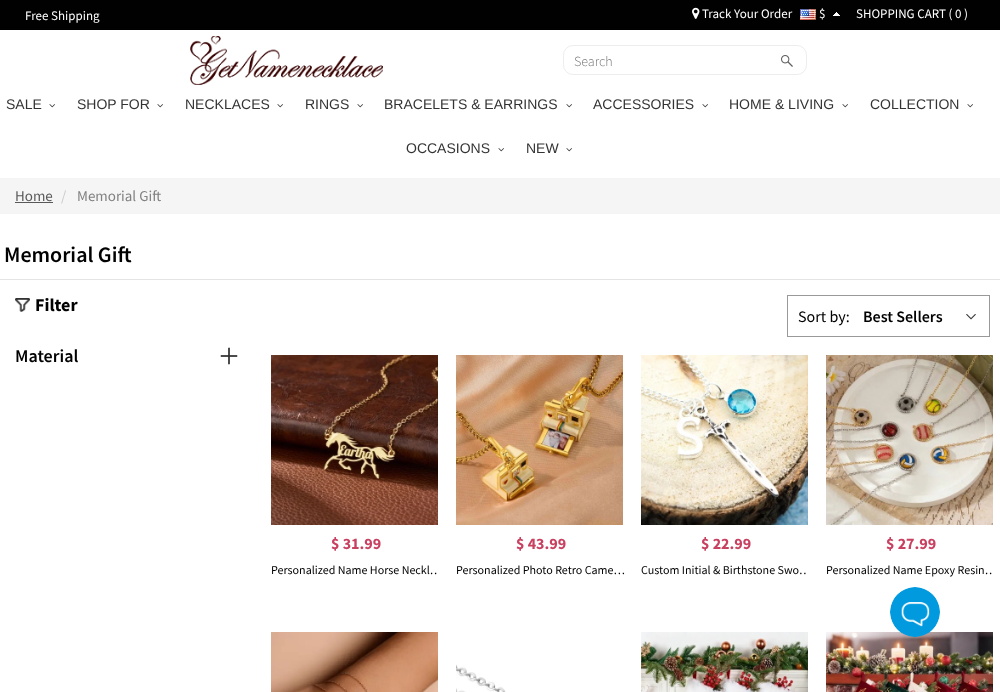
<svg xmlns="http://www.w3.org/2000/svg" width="1000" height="692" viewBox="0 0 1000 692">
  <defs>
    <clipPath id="clip1"><rect x="271" y="555" width="167" height="30"/></clipPath>
    <clipPath id="clip2"><rect x="641" y="555" width="167" height="30"/></clipPath>
    <clipPath id="clip3"><rect x="826" y="555" width="167" height="30"/></clipPath>
  </defs>
  <rect width="100%" height="100%" fill="rgb(255,255,255)"/>
  <rect x="0" y="0" width="1000" height="30" fill="rgb(1,1,1)"/>
  <text x="25" y="20" font-family="Source Sans Pro" font-size="13" fill="rgb(255,255,255)">Free Shipping</text>
  <image x="692" y="7" width="8" height="12" href="pic1.png"/>
  <text x="702" y="18" font-family="Source Sans Pro" font-size="13" fill="rgb(255,255,255)">Track Your Order</text>
  <image x="800" y="9" width="16" height="11" href="pic2.png"/>
  <text x="819" y="18" font-family="Source Sans Pro" font-size="13" fill="rgb(255,255,255)">$</text>
  <image x="833" y="12" width="7" height="4" href="pic3.png"/>
  <text x="856" y="18" font-family="Source Sans Pro" font-size="13" fill="rgb(255,255,255)">SHOPPING CART ( 0 )</text>
  <image x="190" y="36" width="193" height="49" href="pic4.png"/>
  <rect x="563.5" y="45.5" width="243" height="29" rx="9.5" fill="none" stroke="rgb(237,237,237)"/>
  <text x="574" y="66" font-family="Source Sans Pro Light" font-size="14" font-weight="300" fill="rgb(117,117,117)">Search</text>
  <image x="781" y="55" width="12" height="12" href="pic5.png"/>
  <text x="6" y="109" font-family="Liberation Sans" font-size="14" fill="rgb(51,51,51)">SALE</text>
  <image x="49" y="104" width="6" height="4" href="pic6.png"/>
  <text x="77" y="109" font-family="Liberation Sans" font-size="14" fill="rgb(51,51,51)">SHOP FOR</text>
  <image x="157" y="104" width="6" height="4" href="pic6.png"/>
  <text x="185" y="109" font-family="Liberation Sans" font-size="14" fill="rgb(51,51,51)">NECKLACES</text>
  <image x="277" y="104" width="6" height="4" href="pic6.png"/>
  <text x="305" y="109" font-family="Liberation Sans" font-size="14" fill="rgb(51,51,51)">RINGS</text>
  <image x="357" y="104" width="6" height="4" href="pic6.png"/>
  <text x="384" y="109" font-family="Liberation Sans" font-size="14" fill="rgb(51,51,51)">BRACELETS &amp; EARRINGS</text>
  <image x="566" y="104" width="6" height="4" href="pic6.png"/>
  <text x="593" y="109" font-family="Liberation Sans" font-size="14" fill="rgb(51,51,51)">ACCESSORIES</text>
  <image x="702" y="104" width="6" height="4" href="pic6.png"/>
  <text x="729" y="109" font-family="Liberation Sans" font-size="14" fill="rgb(51,51,51)">HOME &amp; LIVING</text>
  <image x="842" y="104" width="6" height="4" href="pic6.png"/>
  <text x="870" y="109" font-family="Liberation Sans" font-size="14" fill="rgb(51,51,51)">COLLECTION</text>
  <image x="967" y="104" width="6" height="4" href="pic6.png"/>
  <text x="406" y="153" font-family="Liberation Sans" font-size="14" fill="rgb(51,51,51)">OCCASIONS</text>
  <image x="498" y="148" width="6" height="4" href="pic6.png"/>
  <text x="526" y="153" font-family="Liberation Sans" font-size="14" fill="rgb(51,51,51)">NEW</text>
  <image x="566" y="148" width="6" height="4" href="pic6.png"/>
  <rect x="0" y="178" width="1000" height="36" fill="rgb(245,245,245)"/>
  <text x="15" y="201" font-family="Source Sans Pro" font-size="15" fill="rgb(89,89,89)">Home</text>
  <rect x="15" y="202" width="38" height="1" fill="rgb(89,89,89)"/>
  <text x="61" y="201" font-family="Source Sans Pro" font-size="15" fill="rgb(204,204,204)">/</text>
  <text x="77" y="201" font-family="Source Sans Pro" font-size="15" fill="rgb(128,128,128)">Memorial Gift</text>
  <rect x="0" y="279" width="1000" height="1" fill="rgb(228,228,228)"/>
  <text x="4" y="262" font-family="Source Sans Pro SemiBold" font-size="22" font-weight="600" fill="rgb(1,1,1)">Memorial Gift</text>
  <image x="15" y="298" width="15" height="14" href="pic7.png"/>
  <text x="35" y="311" font-family="Source Sans Pro" font-size="18" font-weight="bold" fill="rgb(1,1,1)">Filter</text>
  <text x="15" y="362" font-family="Source Sans Pro SemiBold" font-size="18" font-weight="600" fill="rgb(1,1,1)">Material</text>
  <image x="220" y="347" width="18" height="18" href="pic8.png"/>
  <rect x="787.5" y="295.5" width="202" height="41" fill="none" stroke="rgb(153,153,153)"/>
  <text x="798" y="322" font-family="Source Sans Pro" font-size="16" fill="rgb(1,1,1)">Sort by:</text>
  <text x="863" y="322" font-family="Source Sans Pro SemiBold" font-size="16" font-weight="600" fill="rgb(1,1,1)">Best Sellers</text>
  <image x="966" y="314" width="10" height="6" href="pic9.png"/>
  <image x="271" y="355" width="167" height="170" href="pic10.png"/>
  <text x="331" y="549" font-family="Source Sans Pro" font-size="16" font-weight="bold" fill="rgb(200,65,97)">$ 31.99</text>
  <g clip-path="url(#clip1)">
    <text x="271" y="574" font-family="Source Sans Pro" font-size="12" fill="rgb(1,1,1)">Personalized Name Horse Neckl…</text>
  </g>
  <image x="456" y="355" width="167" height="170" href="pic11.png"/>
  <text x="516" y="549" font-family="Source Sans Pro" font-size="16" font-weight="bold" fill="rgb(200,65,97)">$ 43.99</text>
  <text x="456" y="574" font-family="Source Sans Pro" font-size="12" fill="rgb(1,1,1)">Personalized Photo Retro Came…</text>
  <image x="641" y="355" width="167" height="170" href="pic12.png"/>
  <text x="701" y="549" font-family="Source Sans Pro" font-size="16" font-weight="bold" fill="rgb(200,65,97)">$ 22.99</text>
  <g clip-path="url(#clip2)">
    <text x="641" y="574" font-family="Source Sans Pro" font-size="12" fill="rgb(1,1,1)">Custom Initial &amp; Birthstone Swo…</text>
  </g>
  <image x="826" y="355" width="167" height="170" href="pic13.png"/>
  <text x="886" y="549" font-family="Source Sans Pro" font-size="16" font-weight="bold" fill="rgb(200,65,97)">$ 27.99</text>
  <g clip-path="url(#clip3)">
    <text x="826" y="574" font-family="Source Sans Pro" font-size="12" fill="rgb(1,1,1)">Personalized Name Epoxy Resin…</text>
  </g>
  <image x="271" y="632" width="167" height="60" href="pic14.png"/>
  <image x="456" y="664" width="50" height="28" href="pic15.png"/>
  <image x="641" y="632" width="167" height="60" href="pic16.png"/>
  <image x="826" y="632" width="167" height="60" href="pic17.png"/>
  <image x="890" y="587" width="50" height="50" href="pic18.png"/>
</svg>
